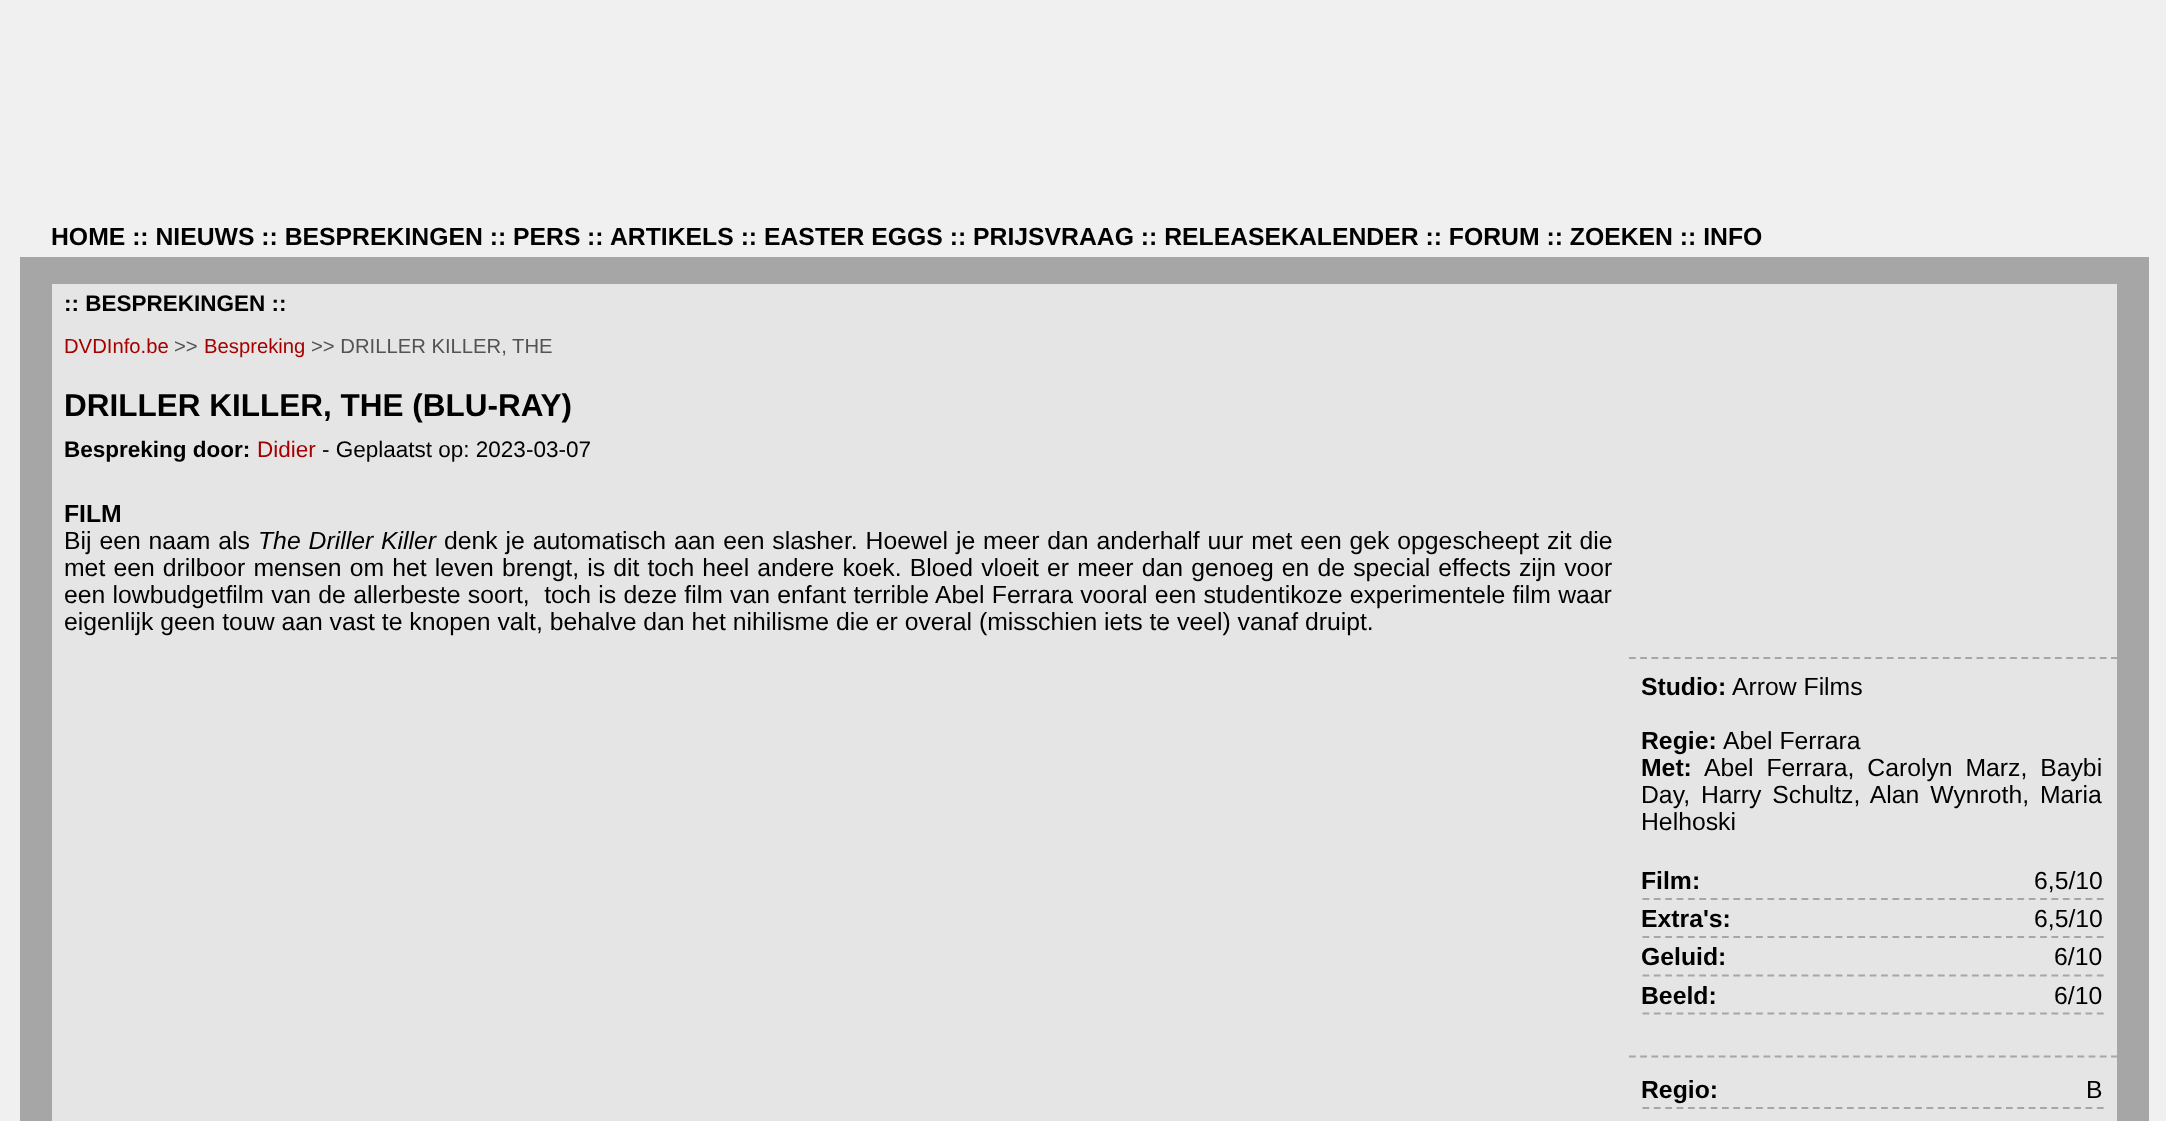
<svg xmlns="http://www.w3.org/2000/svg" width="2166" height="1121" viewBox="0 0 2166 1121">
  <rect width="100%" height="100%" fill="rgb(240,240,240)"/>
  <g font-family="Liberation Sans" font-size="24.75" font-weight="bold" fill="rgb(0,0,0)">
    <text x="51" y="245">HOME :: NIEUWS :: BESPREKINGEN :: PERS</text>
    <text x="587" y="245">::</text>
    <text x="610" y="245">ARTIKELS :: EASTER EGGS :: PRIJSVRAAG :: RELEASEKALENDER :: FORUM :: ZOEKEN :: INFO</text>
  </g>
  <rect x="20" y="257" width="2129" height="864" fill="rgb(166,166,166)"/>
  <rect x="52" y="284" width="2065" height="837" fill="rgb(229,229,229)"/>
  <text x="64" y="311" font-family="Liberation Sans" font-size="22.5" font-weight="bold" fill="rgb(0,0,0)">:: BESPREKINGEN ::</text>
  <text x="64" y="353" font-family="Liberation Sans" font-size="20.25" fill="rgb(165,0,0)">DVDInfo.be</text>
  <text x="174" y="353" font-family="Liberation Sans" font-size="20.25" fill="rgb(83,83,83)">&gt;&gt;</text>
  <text x="204" y="353" font-family="Liberation Sans" font-size="20.25" fill="rgb(165,0,0)">Bespreking</text>
  <text x="311" y="353" font-family="Liberation Sans" font-size="20.25" fill="rgb(83,83,83)">&gt;&gt; DRILLER KILLER, THE</text>
  <text x="64" y="416" font-family="Liberation Sans" font-size="31.5" font-weight="bold" fill="rgb(0,0,0)">DRILLER KILLER, THE (BLU-RAY)</text>
  <text x="64" y="457" font-family="Liberation Sans" font-size="22.5" font-weight="bold" fill="rgb(0,0,0)">Bespreking door:</text>
  <text x="257" y="457" font-family="Liberation Sans" font-size="22.5" fill="rgb(165,0,0)">Didier</text>
  <text x="322" y="457" font-family="Liberation Sans" font-size="22.5" fill="rgb(0,0,0)">- Geplaatst op: 2023-03-07</text>
  <text x="64" y="522" font-family="Liberation Sans" font-size="24.75" font-weight="bold" fill="rgb(0,0,0)">FILM</text>
  <text x="64" y="549" word-spacing="1" font-family="Liberation Sans" font-size="24.75" fill="rgb(0,0,0)">Bij een naam als</text>
  <text x="258" y="549" word-spacing="1" font-family="Liberation Sans" font-size="24.75" font-style="italic" fill="rgb(0,0,0)">The Driller Killer</text>
  <g font-family="Liberation Sans" font-size="24.75" fill="rgb(0,0,0)">
    <text x="444" y="549" word-spacing="1">denk je automatisch aan een slasher. Hoewel je meer dan anderhalf uur met een gek opgescheept zit die</text>
    <text xml:space="preserve"><tspan x="64" y="576" word-spacing="1.25">met een drilboor mensen om het leven brengt, is dit toch heel andere koek. Bloed vloeit er meer dan genoeg en de special effects zijn voor</tspan><tspan x="64" y="603" word-spacing="0.4">een lowbudgetfilm van de allerbeste soort,  toch is deze film van enfant terrible Abel Ferrara vooral een studentikoze experimentele film waar</tspan><tspan x="64" y="630">eigenlijk geen touw aan vast te knopen valt, behalve dan het nihilisme die er overal (misschien iets te veel) vanaf druipt.</tspan></text>
  </g>
  <path d="M1629 658H2117" fill="none" stroke="rgb(166,166,166)" stroke-width="2.2" stroke-dasharray="6.75 4.46"/>
  <text x="1641" y="695" font-family="Liberation Sans" font-size="24.75" font-weight="bold" fill="rgb(0,0,0)">Studio:</text>
  <text x="1732" y="695" font-family="Liberation Sans" font-size="24.75" fill="rgb(0,0,0)">Arrow Films</text>
  <text x="1641" y="749" font-family="Liberation Sans" font-size="24.75" font-weight="bold" fill="rgb(0,0,0)">Regie:</text>
  <text x="1723" y="749" font-family="Liberation Sans" font-size="24.75" fill="rgb(0,0,0)">Abel Ferrara</text>
  <text x="1641" y="776" font-family="Liberation Sans" font-size="24.75" font-weight="bold" fill="rgb(0,0,0)">Met:</text>
  <g font-family="Liberation Sans" font-size="24.75" fill="rgb(0,0,0)">
    <text x="1704" y="776" word-spacing="6">Abel Ferrara, Carolyn Marz, Baybi</text>
    <text>
      <tspan x="1641" y="803" word-spacing="4">Day, Harry Schultz, Alan Wynroth, Maria</tspan>
      <tspan x="1641" y="830">Helhoski</tspan>
    </text>
  </g>
  <path d="M1642.5 899H2104" fill="none" stroke="rgb(166,166,166)" stroke-width="2.2" stroke-dasharray="6.75 4.61"/>
  <text x="1641" y="889" font-family="Liberation Sans" font-size="24.75" font-weight="bold" fill="rgb(0,0,0)">Film:</text>
  <text x="2034" y="889" font-family="Liberation Sans" font-size="24.75" fill="rgb(0,0,0)">6,5/10</text>
  <path d="M1642.5 937H2104" fill="none" stroke="rgb(166,166,166)" stroke-width="2.2" stroke-dasharray="6.75 4.61"/>
  <text x="1641" y="927" font-family="Liberation Sans" font-size="24.75" font-weight="bold" fill="rgb(0,0,0)">Extra's:</text>
  <text x="2034" y="927" font-family="Liberation Sans" font-size="24.75" fill="rgb(0,0,0)">6,5/10</text>
  <path d="M1642.5 975.5H2104" fill="none" stroke="rgb(166,166,166)" stroke-width="2.2" stroke-dasharray="6.75 4.61"/>
  <text x="1641" y="965" font-family="Liberation Sans" font-size="24.75" font-weight="bold" fill="rgb(0,0,0)">Geluid:</text>
  <text x="2054" y="965" font-family="Liberation Sans" font-size="24.75" fill="rgb(0,0,0)">6/10</text>
  <path d="M1642.5 1013.5H2104" fill="none" stroke="rgb(166,166,166)" stroke-width="2.2" stroke-dasharray="6.75 4.61"/>
  <text x="1641" y="1004" font-family="Liberation Sans" font-size="24.75" font-weight="bold" fill="rgb(0,0,0)">Beeld:</text>
  <text x="2054" y="1004" font-family="Liberation Sans" font-size="24.75" fill="rgb(0,0,0)">6/10</text>
  <path d="M1629 1056.5H2117" fill="none" stroke="rgb(166,166,166)" stroke-width="2.2" stroke-dasharray="6.75 4.46"/>
  <path d="M1642.5 1108H2104" fill="none" stroke="rgb(166,166,166)" stroke-width="2.2" stroke-dasharray="6.75 4.61"/>
  <text x="1641" y="1098" font-family="Liberation Sans" font-size="24.75" font-weight="bold" fill="rgb(0,0,0)">Regio:</text>
  <text x="2086" y="1098" font-family="Liberation Sans" font-size="24.75" fill="rgb(0,0,0)">B</text>
</svg>
